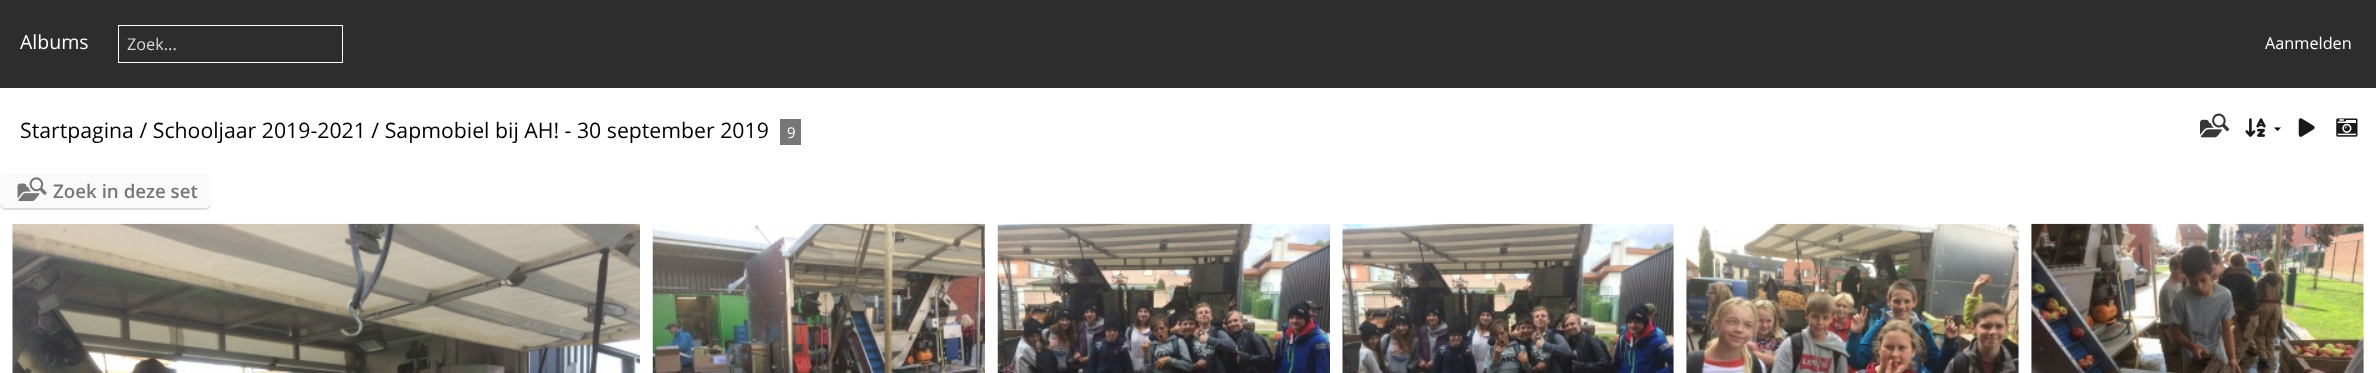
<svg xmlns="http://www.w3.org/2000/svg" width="2376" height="373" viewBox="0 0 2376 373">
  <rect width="100%" height="100%" fill="rgb(255,255,255)"/>
  <rect x="0" y="0" width="2376" height="88" fill="rgb(45,45,45)"/>
  <text x="20" y="49" font-family="Open Sans" font-size="19.5" fill="rgb(255,255,255)">Albums</text>
  <rect x="118.5" y="25.5" width="224" height="37" fill="none" stroke="rgb(255,255,255)"/>
  <text x="127" y="50" font-family="Open Sans" font-size="16.25" fill="rgb(214,214,214)">Zoek...</text>
  <text x="2265" y="49" font-family="Open Sans" font-size="16.25" fill="rgb(255,255,255)">Aanmelden</text>
  <text x="20" y="138" font-family="Open Sans" font-size="21.25" fill="rgb(0,0,0)">Startpagina / Schooljaar 2019-2021 / Sapmobiel bij AH! - 30 september 2019</text>
  <rect x="780" y="119" width="21" height="26" fill="rgb(119,119,119)"/>
  <text x="787" y="138" font-family="Open Sans" font-size="15" fill="rgb(255,255,255)">9</text>
  <image x="2200" y="113" width="30" height="25" href="pic1.png"/>
  <image x="2245" y="118" width="21" height="19" href="pic2.png"/>
  <path d="M2274 127.5H2281L2277.5 131Z" fill="rgb(0,0,0)"/>
  <image x="2298" y="118" width="17" height="19" href="pic3.png"/>
  <image x="2336" y="118" width="22" height="19" href="pic4.png"/>
  <path d="M0 201V204C0 207 3 210 6 210H205C208 210 211 207 211 204V203C210 206 208 208 205 208H6C3 208 0 205 0 201Z" fill="rgb(219,219,219)"/>
  <rect x="0" y="173" width="211" height="35" rx="6" fill="rgb(250,250,250)"/>
  <image x="17" y="177" width="30" height="25" href="pic5.png"/>
  <text x="53" y="198" font-family="Open Sans" font-size="18.75" font-weight="600" fill="rgb(119,119,119)">Zoek in deze set</text>
  <image x="12" y="223" width="628" height="150" href="pic6.png"/>
  <image x="652" y="223" width="333" height="150" href="pic7.png"/>
  <image x="997" y="223" width="333" height="150" href="pic8.png"/>
  <image x="1342" y="223" width="332" height="150" href="pic9.png"/>
  <image x="1686" y="223" width="333" height="150" href="pic10.png"/>
  <image x="2031" y="223" width="333" height="150" href="pic11.png"/>
</svg>
